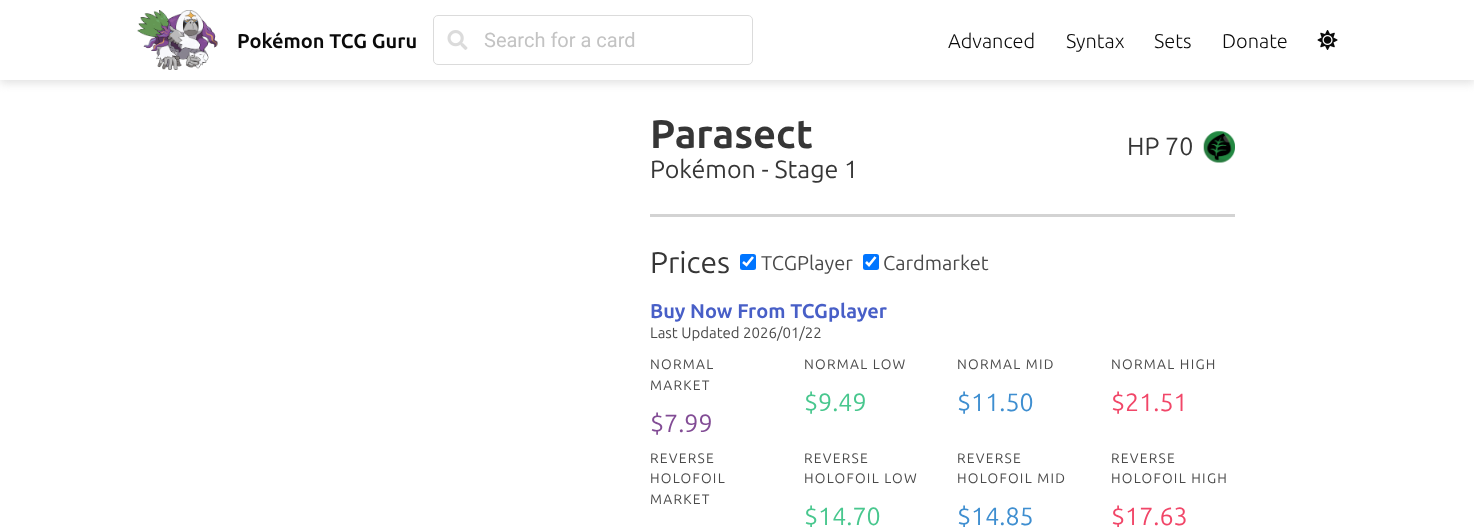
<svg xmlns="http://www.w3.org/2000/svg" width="1474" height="527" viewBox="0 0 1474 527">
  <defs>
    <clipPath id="clip1"><rect x="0" y="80" width="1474" height="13"/></clipPath>
  </defs>
  <rect width="100%" height="100%" fill="rgb(255,255,255)"/>
  <g clip-path="url(#clip1)">
    <rect x="0" y="3" width="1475" height="80" fill="rgb(224,224,224)" filter="blur(5px)"/>
  </g>
  <image x="137" y="10" width="81" height="60" href="pic1.png"/>
  <text x="237" y="48" font-family="Ubuntu" font-size="20" font-weight="bold" fill="rgb(10,10,10)">Pokémon TCG Guru</text>
  <rect x="433.5" y="15.5" width="319" height="49" rx="4.5" fill="none" stroke="rgb(219,219,219)"/>
  <image x="447" y="30" width="21" height="20" href="pic2.png"/>
  <text x="484" y="47" font-family="Roboto" font-size="20" fill="rgb(195,195,195)">Search for a card</text>
  <g font-family="Ubuntu" font-size="20" font-weight="300" fill="rgb(10,10,10)">
    <text x="948" y="48">Advanced</text>
    <text x="1066" y="48">Syntax</text>
    <text x="1154" y="48">Sets</text>
    <text x="1222" y="48">Donate</text>
  </g>
  <image x="1317" y="30" width="21" height="20" href="pic3.png"/>
  <text x="650" y="148" font-family="Ubuntu" font-size="40" font-weight="bold" fill="rgb(54,54,54)">Parasect</text>
  <g font-family="Ubuntu" font-size="25" fill="rgb(54,54,54)">
    <text x="650" y="178">Pokémon - Stage 1</text>
    <text x="1127" y="155">HP 70</text>
  </g>
  <image x="1203" y="131" width="32" height="32" href="pic4.png"/>
  <rect x="650" y="214" width="585" height="3" fill="rgb(211,211,211)"/>
  <text x="650" y="273" font-family="Ubuntu" font-size="30" fill="rgb(54,54,54)">Prices</text>
  <rect x="740" y="254" width="16" height="16" rx="2.5" fill="rgb(0,117,255)"/>
  <path d="M743 262L746.5 265L753 257" fill="none" stroke="rgb(255,255,255)" stroke-width="2.6"/>
  <text x="761" y="270" font-family="Ubuntu" font-size="20" fill="rgb(74,74,74)">TCGPlayer</text>
  <rect x="863" y="254" width="16" height="16" rx="2.5" fill="rgb(0,117,255)"/>
  <path d="M866 262L869 265L875.5 257" fill="none" stroke="rgb(255,255,255)" stroke-width="2.6"/>
  <text x="883" y="270" font-family="Ubuntu" font-size="20" fill="rgb(74,74,74)">Cardmarket</text>
  <text x="650" y="318" font-family="Ubuntu" font-size="20" font-weight="bold" fill="rgb(72,95,199)">Buy Now From TCGplayer</text>
  <text x="650" y="338" font-family="Ubuntu" font-size="15" fill="rgb(74,74,74)">Last Updated 2026/01/22</text>
  <g font-family="Ubuntu" font-size="13.75" letter-spacing="1.25" fill="rgb(74,74,74)">
    <text>
      <tspan x="650" y="369">NORMAL</tspan>
      <tspan x="650" y="390">MARKET</tspan>
    </text>
  </g>
  <text x="650" y="432" font-family="Ubuntu" font-size="25" fill="rgb(130,76,149)">$7.99</text>
  <text x="804" y="369" font-family="Ubuntu" font-size="13.75" letter-spacing="1.25" fill="rgb(74,74,74)">NORMAL LOW</text>
  <text x="804" y="411" font-family="Ubuntu" font-size="25" fill="rgb(72,199,142)">$9.49</text>
  <text x="957" y="369" font-family="Ubuntu" font-size="13.75" letter-spacing="1.25" fill="rgb(74,74,74)">NORMAL MID</text>
  <text x="957" y="411" font-family="Ubuntu" font-size="25" fill="rgb(62,142,208)">$11.50</text>
  <text x="1111" y="369" font-family="Ubuntu" font-size="13.75" letter-spacing="1.25" fill="rgb(74,74,74)">NORMAL HIGH</text>
  <text x="1111" y="411" font-family="Ubuntu" font-size="25" fill="rgb(241,70,104)">$21.51</text>
  <g font-family="Ubuntu" font-size="13.75" letter-spacing="1.25" fill="rgb(74,74,74)">
    <text>
      <tspan x="650" y="463">REVERSE</tspan>
      <tspan x="650" y="483">HOLOFOIL</tspan>
      <tspan x="650" y="504">MARKET</tspan>
    </text>
    <text>
      <tspan x="804" y="463">REVERSE</tspan>
      <tspan x="804" y="483">HOLOFOIL LOW</tspan>
    </text>
  </g>
  <text x="804" y="525" font-family="Ubuntu" font-size="25" fill="rgb(72,199,142)">$14.70</text>
  <g font-family="Ubuntu" font-size="13.75" letter-spacing="1.25" fill="rgb(74,74,74)">
    <text>
      <tspan x="957" y="463">REVERSE</tspan>
      <tspan x="957" y="483">HOLOFOIL MID</tspan>
    </text>
  </g>
  <text x="957" y="525" font-family="Ubuntu" font-size="25" fill="rgb(62,142,208)">$14.85</text>
  <g font-family="Ubuntu" font-size="13.75" letter-spacing="1.25" fill="rgb(74,74,74)">
    <text>
      <tspan x="1111" y="463">REVERSE</tspan>
      <tspan x="1111" y="483">HOLOFOIL HIGH</tspan>
    </text>
  </g>
  <text x="1111" y="525" font-family="Ubuntu" font-size="25" fill="rgb(241,70,104)">$17.63</text>
</svg>
